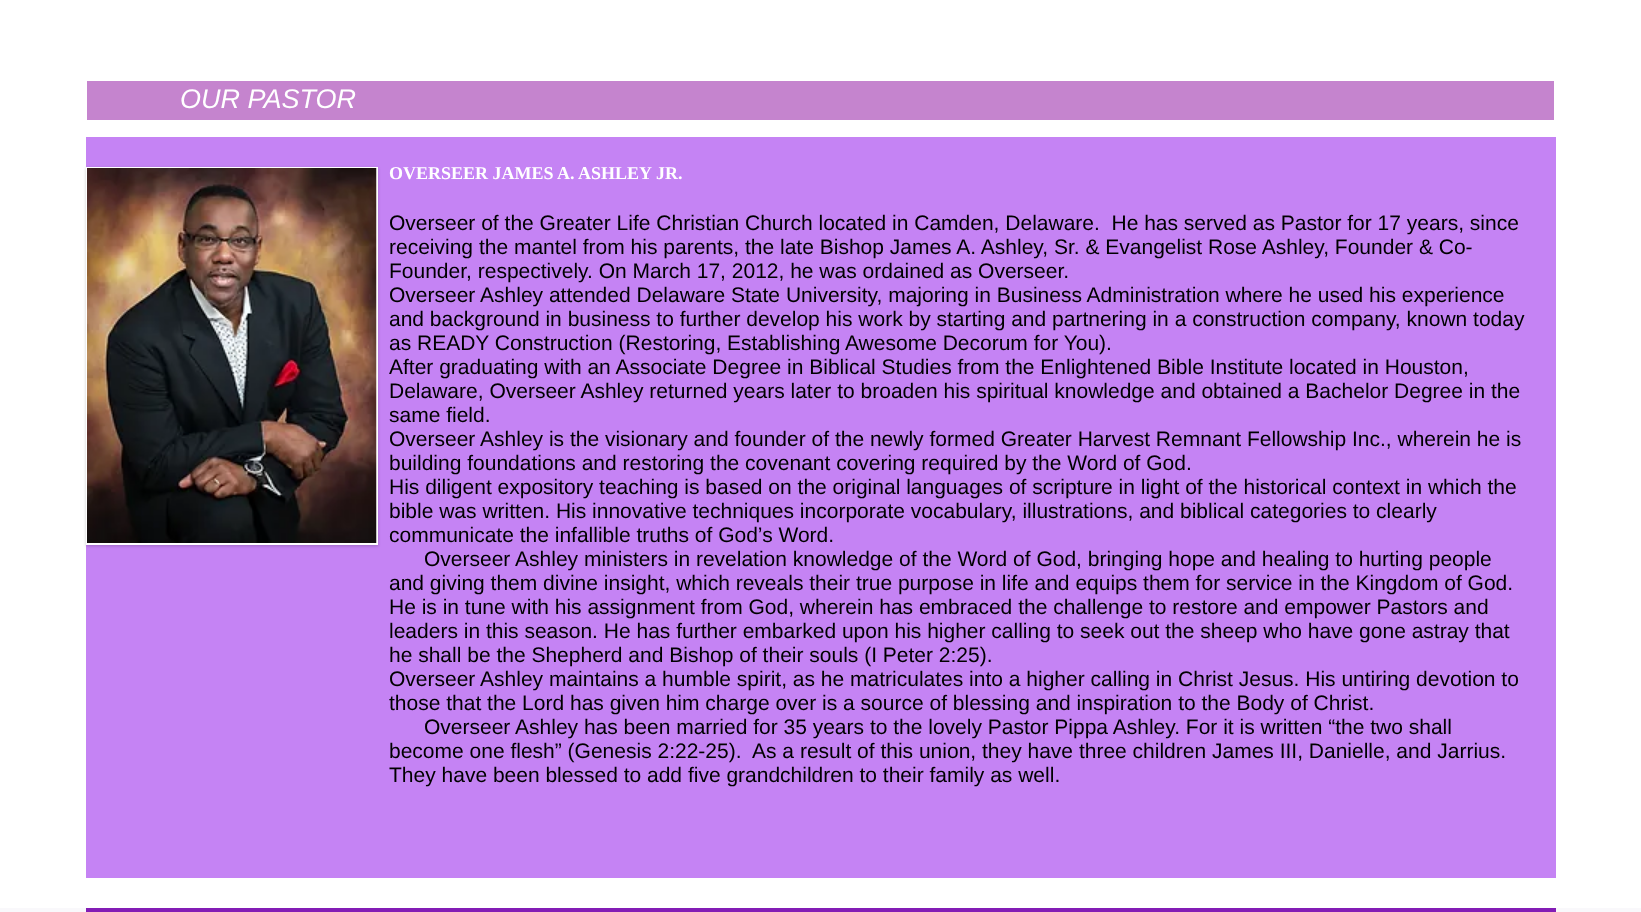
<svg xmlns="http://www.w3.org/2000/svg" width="1641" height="912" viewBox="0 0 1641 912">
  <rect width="100%" height="100%" fill="rgb(255,255,255)"/>
  <rect x="87" y="81" width="1467" height="39" fill="rgb(197,132,206)"/>
  <text x="180" y="108" font-family="Liberation Sans" font-size="27" font-style="italic" fill="rgb(255,255,255)">OUR PASTOR</text>
  <rect x="86" y="137" width="1470" height="741" fill="rgb(197,131,244)"/>
  <rect x="86" y="168" width="292" height="378" fill="rgba(0,0,0,0.2)" filter="blur(1.5px)"/>
  <rect x="86" y="167" width="292" height="378" fill="rgb(255,255,255)"/>
  <image x="87" y="168" width="290" height="375" href="pic1.png"/>
  <text x="389" y="179" font-family="Liberation Serif" font-size="18" font-weight="bold" fill="rgb(255,255,255)">OVERSEER JAMES A. ASHLEY JR.</text>
  <g font-family="Liberation Sans" font-size="21" fill="rgb(0,0,0)">
    <text xml:space="preserve"><tspan x="389" y="230">Overseer of the Greater Life Christian Church located in Camden, Delaware.  He has served as Pastor for 17 years, since</tspan><tspan x="389" y="254">receiving the mantel from his parents, the late Bishop James A. Ashley, Sr. &amp; Evangelist Rose Ashley, Founder &amp; Co-</tspan><tspan x="389" y="278">Founder, respectively. On March 17, 2012, he was ordained as Overseer.</tspan><tspan x="389" y="302">Overseer Ashley attended Delaware State University, majoring in Business Administration where he used his experience</tspan><tspan x="389" y="326">and background in business to further develop his work by starting and partnering in a construction company, known today</tspan><tspan x="389" y="350">as READY Construction (Restoring, Establishing Awesome Decorum for You).</tspan><tspan x="389" y="374">After graduating with an Associate Degree in Biblical Studies from the Enlightened Bible Institute located in Houston,</tspan><tspan x="389" y="398">Delaware, Overseer Ashley returned years later to broaden his spiritual knowledge and obtained a Bachelor Degree in the</tspan><tspan x="389" y="422">same field.</tspan><tspan x="389" y="446">Overseer Ashley is the visionary and founder of the newly formed Greater Harvest Remnant Fellowship Inc., wherein he is</tspan><tspan x="389" y="470">building foundations and restoring the covenant covering required by the Word of God.</tspan><tspan x="389" y="494">His diligent expository teaching is based on the original languages of scripture in light of the historical context in which the</tspan><tspan x="389" y="518">bible was written. His innovative techniques incorporate vocabulary, illustrations, and biblical categories to clearly</tspan><tspan x="389" y="542">communicate the infallible truths of God’s Word.</tspan></text>
    <text x="424" y="566">Overseer Ashley ministers in revelation knowledge of the Word of God, bringing hope and healing to hurting people</text>
    <text>
      <tspan x="389" y="590">and giving them divine insight, which reveals their true purpose in life and equips them for service in the Kingdom of God.</tspan>
      <tspan x="389" y="614">He is in tune with his assignment from God, wherein has embraced the challenge to restore and empower Pastors and</tspan>
      <tspan x="389" y="638">leaders in this season. He has further embarked upon his higher calling to seek out the sheep who have gone astray that</tspan>
      <tspan x="389" y="662">he shall be the Shepherd and Bishop of their souls (I Peter 2:25).</tspan>
      <tspan x="389" y="686">Overseer Ashley maintains a humble spirit, as he matriculates into a higher calling in Christ Jesus. His untiring devotion to</tspan>
      <tspan x="389" y="710">those that the Lord has given him charge over is a source of blessing and inspiration to the Body of Christ.</tspan>
    </text>
    <text x="424" y="734">Overseer Ashley has been married for 35 years to the lovely Pastor Pippa Ashley. For it is written “the two shall</text>
    <text xml:space="preserve"><tspan x="389" y="758">become one flesh” (Genesis 2:22-25).  As a result of this union, they have three children James III, Danielle, and Jarrius.</tspan><tspan x="389" y="782">They have been blessed to add five grandchildren to their family as well.</tspan></text>
  </g>
  <rect x="0" y="908" width="1641" height="4" fill="rgb(249,248,251)"/>
  <rect x="86" y="908" width="1470" height="4" fill="rgb(131,29,181)"/>
</svg>
